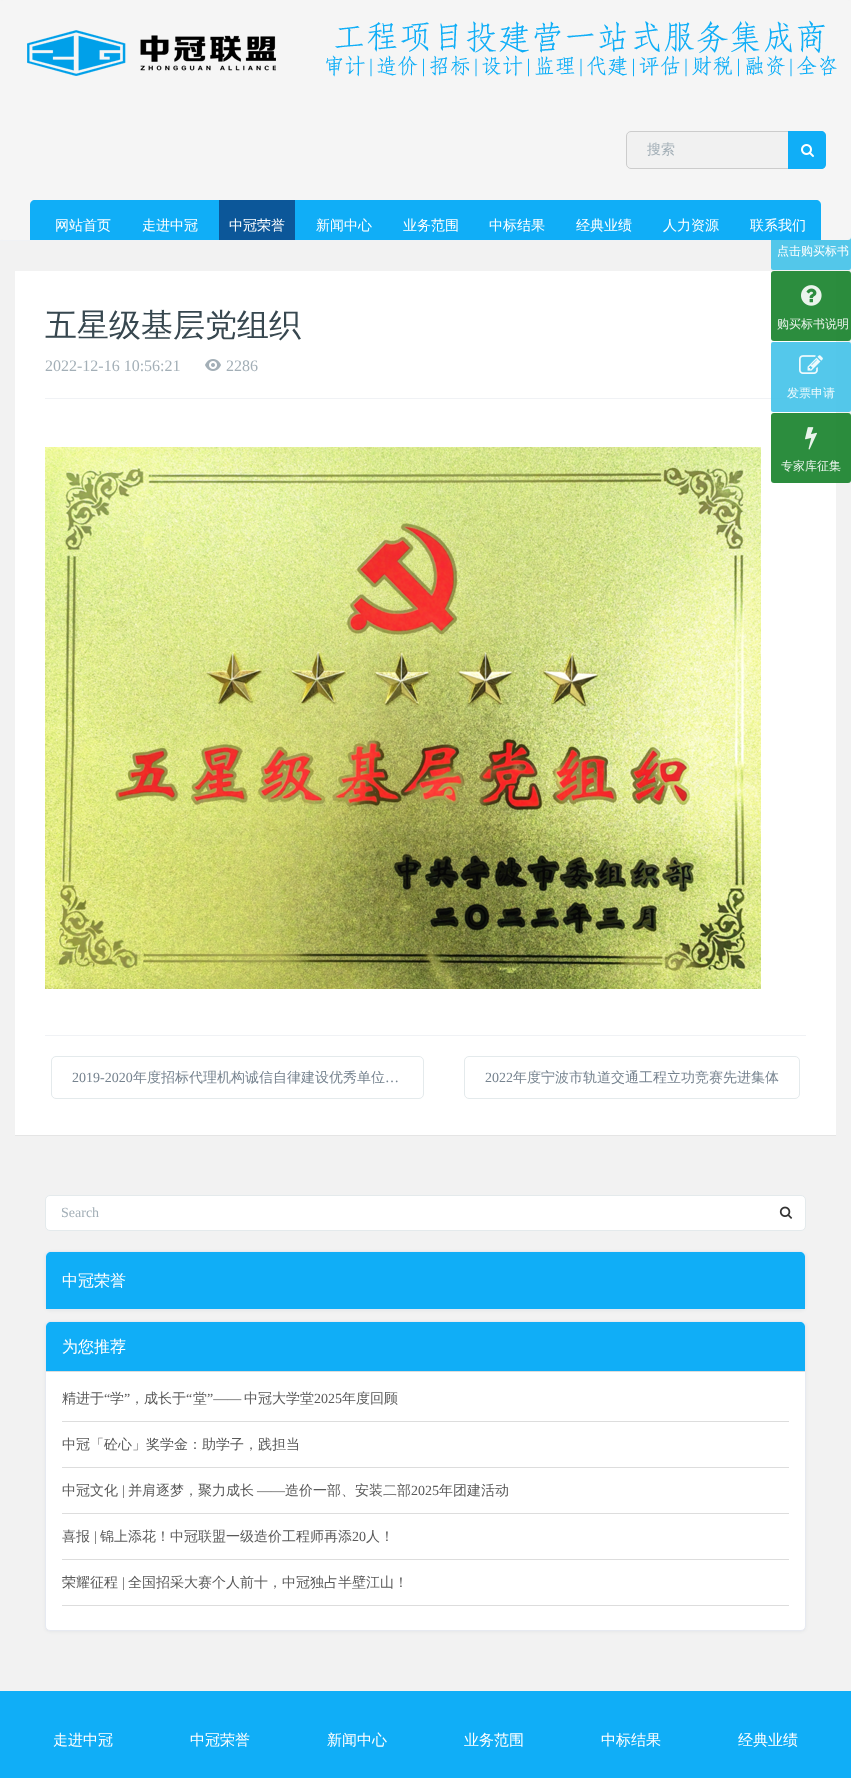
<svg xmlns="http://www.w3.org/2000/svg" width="851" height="1778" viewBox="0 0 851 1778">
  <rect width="100%" height="100%" fill="rgb(245,245,245)"/>
  <rect x="0" y="241" width="851" height="1450" fill="rgb(242,242,242)"/>
  <rect x="0" y="240" width="851" height="1" fill="rgb(240,242,245)"/>
  <rect x="15" y="272" width="821" height="864" fill="rgba(0,0,0,0.05)" filter="blur(0.5px)"/>
  <rect x="771" y="200" width="80" height="70" rx="2" fill="rgba(65,194,233,0.9)"/>
  <rect x="0" y="0" width="851" height="240" rx="3" fill="rgb(245,245,245)"/>
  <image x="27" y="20" width="810" height="57" href="pic1.png"/>
  <rect x="626.5" y="131.5" width="199" height="37" rx="4.5" fill="rgb(241,241,241)" stroke="rgb(204,204,204)"/>
  <text x="647" y="154" font-family="WenQuanYi Zen Hei" font-size="14" font-weight="500" fill="rgb(163,175,183)">搜索</text>
  <path d="M788 131H821C824 131 826 133 826 136V164C826 167 824 169 821 169H788Z" fill="rgb(16,174,247)"/>
  <image x="801" y="144" width="13" height="13" href="pic2.png"/>
  <path d="M35 200H816C819 200 821 202 821 205V240H30V205C30 202 32 200 35 200Z" fill="rgb(16,174,247)"/>
  <g font-family="WenQuanYi Zen Hei" font-size="14" font-weight="500" fill="rgb(255,255,255)">
    <text x="55" y="230">网站首页</text>
    <text x="142" y="230">走进中冠</text>
  </g>
  <rect x="219" y="200" width="76" height="40" fill="rgb(12,87,153)"/>
  <g font-family="WenQuanYi Zen Hei" font-size="14" font-weight="500" fill="rgb(255,255,255)">
    <text x="229" y="230">中冠荣誉</text>
    <text x="316" y="230">新闻中心</text>
    <text x="403" y="230">业务范围</text>
    <text x="489" y="230">中标结果</text>
    <text x="576" y="230">经典业绩</text>
    <text x="663" y="230">人力资源</text>
    <text x="750" y="230">联系我们</text>
  </g>
  <rect x="15" y="271" width="821" height="864" fill="rgb(255,255,255)"/>
  <text x="45" y="336" font-family="WenQuanYi Zen Hei" font-size="32" font-weight="500" fill="rgb(55,71,79)">五星级基层党组织</text>
  <rect x="45" y="398" width="761" height="1" fill="rgb(240,242,245)"/>
  <text x="45" y="371" font-family="Liberation Serif" font-size="16" fill="rgb(163,175,183)">2022-12-16 10:56:21</text>
  <image x="205" y="359" width="16" height="12" href="pic3.png"/>
  <text x="226" y="371" font-family="Liberation Serif" font-size="16" fill="rgb(163,175,183)">2286</text>
  <image x="45" y="447" width="716" height="542" href="pic4.png"/>
  <rect x="45" y="1035" width="761" height="1" fill="rgb(240,242,245)"/>
  <rect x="51.5" y="1056.5" width="372" height="42" rx="4.5" fill="none" stroke="rgb(228,234,236)"/>
  <text x="72" y="1082" font-family="Liberation Serif" font-size="14" fill="rgb(118,131,143)">2019-2020</text>
  <text x="133" y="1082" font-family="WenQuanYi Zen Hei" font-size="14" font-weight="500" fill="rgb(118,131,143)">年度招标代理机构诚信自律建设优秀单位</text>
  <text x="385" y="1082" font-family="Liberation Serif" font-size="14" fill="rgb(118,131,143)">…</text>
  <rect x="464.5" y="1056.5" width="335" height="42" rx="4.5" fill="none" stroke="rgb(228,234,236)"/>
  <text x="485" y="1082" font-family="Liberation Serif" font-size="14" fill="rgb(118,131,143)">2022</text>
  <text x="513" y="1082" font-family="WenQuanYi Zen Hei" font-size="14" font-weight="500" fill="rgb(118,131,143)">年度宁波市轨道交通工程立功竞赛先进集体</text>
  <rect x="45.5" y="1195.5" width="760" height="35" rx="4.5" fill="rgb(255,255,255)" stroke="rgb(228,234,236)"/>
  <text x="61" y="1217" font-family="Liberation Serif" font-size="14" fill="rgb(163,175,183)">Search</text>
  <image x="779" y="1206" width="14" height="13" href="pic5.png"/>
  <rect x="45" y="1252" width="761" height="59" rx="5" fill="rgba(0,37,55,0.05)" filter="blur(1.5px)"/>
  <rect x="45.5" y="1251.5" width="760" height="58" rx="4.5" fill="rgb(255,255,255)" stroke="rgb(231,234,241)"/>
  <path d="M51 1252H800C803 1252 805 1254 805 1257V1309H46V1257C46 1254 48 1252 51 1252Z" fill="rgb(16,174,247)"/>
  <text x="62" y="1286" font-family="WenQuanYi Zen Hei" font-size="16" font-weight="500" fill="rgb(255,255,255)">中冠荣誉</text>
  <rect x="45" y="1322" width="761" height="310" rx="5" fill="rgba(0,37,55,0.05)" filter="blur(1.5px)"/>
  <rect x="45.5" y="1321.5" width="760" height="309" rx="4.5" fill="rgb(255,255,255)" stroke="rgb(231,234,241)"/>
  <path d="M51 1322H800C803 1322 805 1324 805 1327V1372H46V1327C46 1324 48 1322 51 1322Z" fill="rgb(16,174,247)"/>
  <rect x="46" y="1371" width="759" height="1" fill="rgb(221,221,221)"/>
  <text x="62" y="1352" font-family="WenQuanYi Zen Hei" font-size="16" font-weight="500" fill="rgb(255,255,255)">为您推荐</text>
  <rect x="62" y="1421" width="727" height="1" fill="rgb(221,221,221)"/>
  <text x="62" y="1403" font-family="WenQuanYi Zen Hei" font-size="14" font-weight="500" fill="rgb(89,89,89)">精进于</text>
  <text x="104" y="1403" font-family="Liberation Serif" font-size="14" fill="rgb(89,89,89)">“</text>
  <text x="110" y="1403" font-family="WenQuanYi Zen Hei" font-size="14" font-weight="500" fill="rgb(89,89,89)">学</text>
  <text x="124" y="1403" font-family="Liberation Serif" font-size="14" fill="rgb(89,89,89)">”</text>
  <text x="130" y="1403" font-family="WenQuanYi Zen Hei" font-size="14" font-weight="500" fill="rgb(89,89,89)">，成长于</text>
  <text x="186" y="1403" font-family="Liberation Serif" font-size="14" fill="rgb(89,89,89)">“</text>
  <text x="193" y="1403" font-family="WenQuanYi Zen Hei" font-size="14" font-weight="500" fill="rgb(89,89,89)">堂</text>
  <text x="207" y="1403" font-family="Liberation Serif" font-size="14" fill="rgb(89,89,89)">”——</text>
  <text x="244" y="1403" font-family="WenQuanYi Zen Hei" font-size="14" font-weight="500" fill="rgb(89,89,89)">中冠大学堂</text>
  <text x="314" y="1403" font-family="Liberation Serif" font-size="14" fill="rgb(89,89,89)">2025</text>
  <text x="342" y="1403" font-family="WenQuanYi Zen Hei" font-size="14" font-weight="500" fill="rgb(89,89,89)">年度回顾</text>
  <rect x="62" y="1467" width="727" height="1" fill="rgb(221,221,221)"/>
  <text x="62" y="1449" font-family="WenQuanYi Zen Hei" font-size="14" font-weight="500" fill="rgb(89,89,89)">中冠「砼心」奖学金：助学子，践担当</text>
  <rect x="62" y="1513" width="727" height="1" fill="rgb(221,221,221)"/>
  <text x="62" y="1495" font-family="WenQuanYi Zen Hei" font-size="14" font-weight="500" fill="rgb(89,89,89)">中冠文化</text>
  <text x="122" y="1495" font-family="Liberation Serif" font-size="14" fill="rgb(89,89,89)">|</text>
  <text x="128" y="1495" font-family="WenQuanYi Zen Hei" font-size="14" font-weight="500" fill="rgb(89,89,89)">并肩逐梦，聚力成长</text>
  <text x="257" y="1495" font-family="Liberation Serif" font-size="14" fill="rgb(89,89,89)">——</text>
  <text x="285" y="1495" font-family="WenQuanYi Zen Hei" font-size="14" font-weight="500" fill="rgb(89,89,89)">造价一部、安装二部</text>
  <text x="411" y="1495" font-family="Liberation Serif" font-size="14" fill="rgb(89,89,89)">2025</text>
  <text x="439" y="1495" font-family="WenQuanYi Zen Hei" font-size="14" font-weight="500" fill="rgb(89,89,89)">年团建活动</text>
  <rect x="62" y="1559" width="727" height="1" fill="rgb(221,221,221)"/>
  <text x="62" y="1541" font-family="WenQuanYi Zen Hei" font-size="14" font-weight="500" fill="rgb(89,89,89)">喜报</text>
  <text x="94" y="1541" font-family="Liberation Serif" font-size="14" fill="rgb(89,89,89)">|</text>
  <text x="100" y="1541" font-family="WenQuanYi Zen Hei" font-size="14" font-weight="500" fill="rgb(89,89,89)">锦上添花！中冠联盟一级造价工程师再添</text>
  <text x="352" y="1541" font-family="Liberation Serif" font-size="14" fill="rgb(89,89,89)">20</text>
  <text x="366" y="1541" font-family="WenQuanYi Zen Hei" font-size="14" font-weight="500" fill="rgb(89,89,89)">人！</text>
  <rect x="62" y="1605" width="727" height="1" fill="rgb(221,221,221)"/>
  <text x="62" y="1587" font-family="WenQuanYi Zen Hei" font-size="14" font-weight="500" fill="rgb(89,89,89)">荣耀征程</text>
  <text x="122" y="1587" font-family="Liberation Serif" font-size="14" fill="rgb(89,89,89)">|</text>
  <text x="128" y="1587" font-family="WenQuanYi Zen Hei" font-size="14" font-weight="500" fill="rgb(89,89,89)">全国招采大赛个人前十，中冠独占半壁江山！</text>
  <text x="777" y="255" font-family="WenQuanYi Zen Hei" font-size="12" font-weight="500" fill="rgb(255,255,255)">点击购买标书</text>
  <rect x="771" y="271" width="80" height="70" rx="3" fill="rgba(21,129,41,0.9)"/>
  <image x="801" y="285" width="21" height="21" href="pic6.png"/>
  <text x="777" y="328" font-family="WenQuanYi Zen Hei" font-size="12" font-weight="500" fill="rgb(234,244,236)">购买标书说明</text>
  <rect x="771" y="342" width="80" height="70" rx="2" fill="rgba(65,194,233,0.9)"/>
  <image x="799" y="355" width="24" height="19" href="pic7.png"/>
  <text x="787" y="397" font-family="WenQuanYi Zen Hei" font-size="12" font-weight="500" fill="rgb(238,250,253)">发票申请</text>
  <rect x="771" y="413" width="80" height="70" rx="3" fill="rgba(21,129,41,0.9)"/>
  <image x="805" y="427" width="12" height="23" href="pic8.png"/>
  <text x="781" y="470" font-family="WenQuanYi Zen Hei" font-size="12" font-weight="500" fill="rgb(234,244,236)">专家库征集</text>
  <rect x="0" y="1691" width="851" height="87" fill="rgb(16,174,247)"/>
  <g font-family="WenQuanYi Zen Hei" font-size="15" font-weight="500" fill="rgb(255,255,255)">
    <text x="53" y="1745">走进中冠</text>
    <text x="190" y="1745">中冠荣誉</text>
    <text x="327" y="1745">新闻中心</text>
    <text x="464" y="1745">业务范围</text>
    <text x="601" y="1745">中标结果</text>
    <text x="738" y="1745">经典业绩</text>
  </g>
</svg>
